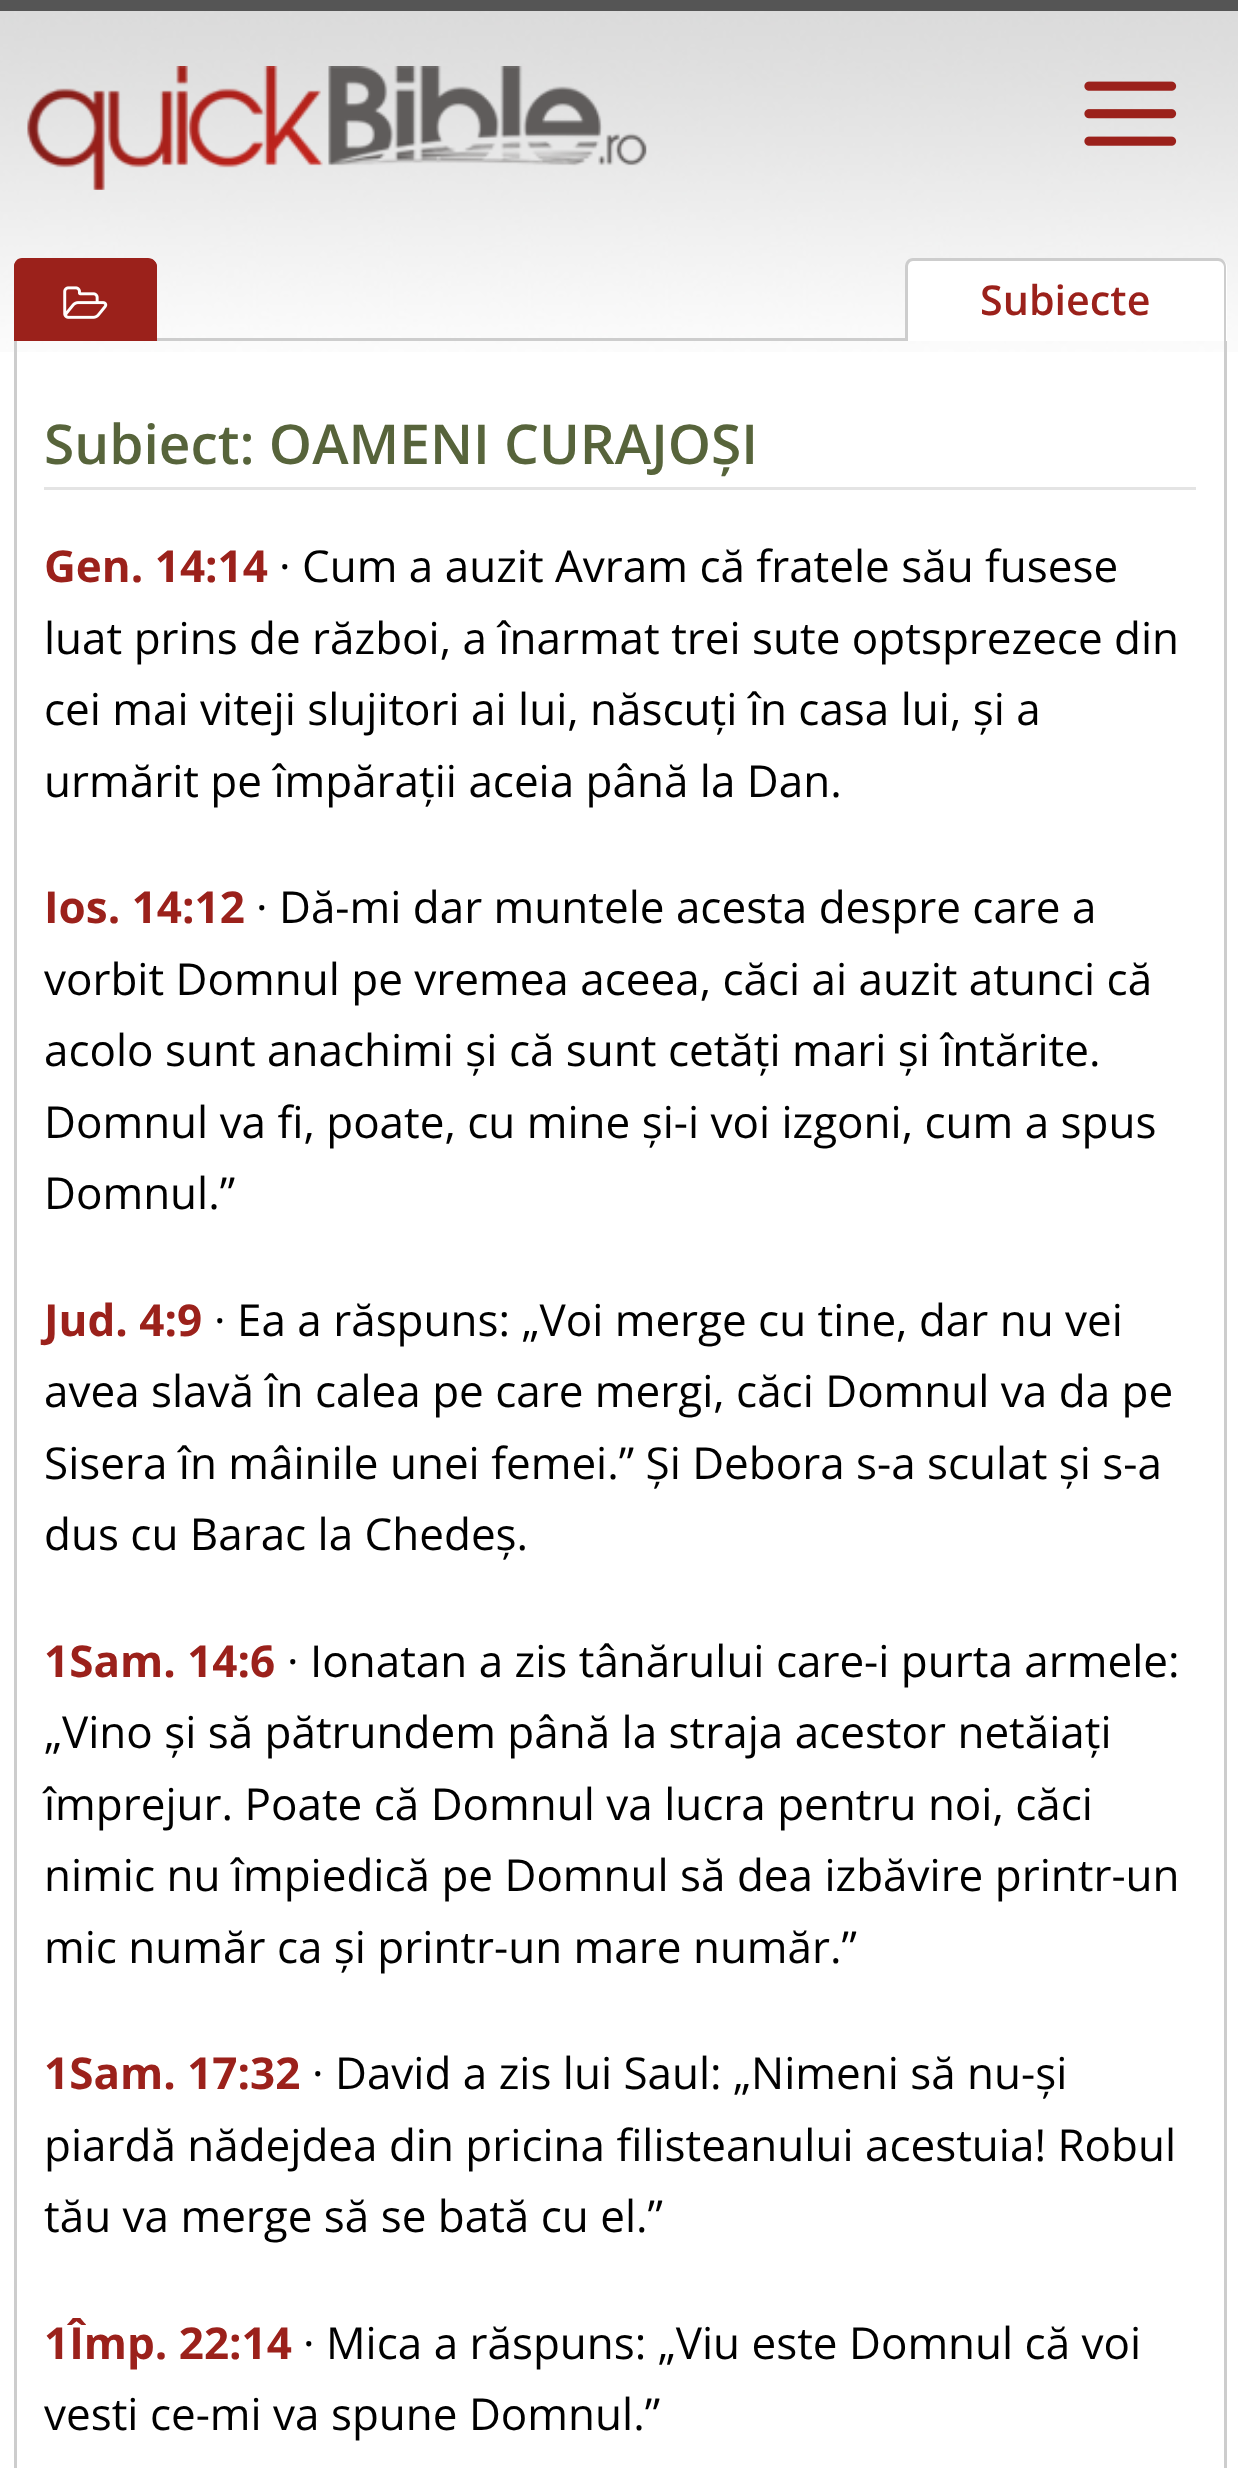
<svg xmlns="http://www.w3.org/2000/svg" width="1238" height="2468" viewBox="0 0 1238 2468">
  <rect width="100%" height="100%" fill="rgb(255,255,255)"/>
  <image x="0" y="11" width="1238" height="341" href="pic1.png"/>
  <rect x="0" y="0" width="1238" height="11" fill="rgb(85,85,85)"/>
  <image x="27" y="66" width="620" height="124" href="pic2.png"/>
  <image x="1084" y="81" width="93" height="65" href="pic3.png"/>
  <rect x="157" y="338" width="748" height="3" fill="rgb(205,205,205)"/>
  <path d="M22 259H149C153.5 259 157 262.5 157 267V341H14V267C14 262.5 17.5 259 22 259Z" fill="rgb(155,33,27)"/>
  <path d="M22 258H148C153 258 157 262 157 267V341H14V267C14 262 17 258 22 258ZM22 261H148C152 261 154 264 154 267V341H16V267C16 264 19 261 22 261Z" fill="rgb(155,33,27)" fill-rule="evenodd"/>
  <image x="63" y="286" width="45" height="33" href="pic4.png"/>
  <path d="M913 259H1219C1223.5 259 1227 262.5 1227 267V341H905V267C905 262.5 908.5 259 913 259Z" fill="rgb(255,255,255)"/>
  <path d="M913 258H1218C1223 258 1226 262 1226 267V341H905V267C905 262 908 258 913 258ZM913 261H1218C1221 261 1224 264 1224 267V341H908V267C908 264 910 261 913 261Z" fill="rgb(205,205,205)" fill-rule="evenodd"/>
  <text x="980" y="315" font-family="Open Sans" font-size="41.25" font-weight="600" fill="rgb(155,33,27)">Subiecte</text>
  <rect x="1224" y="341" width="3" height="2127" fill="rgb(205,205,205)"/>
  <rect x="14" y="341" width="3" height="2127" fill="rgb(205,205,205)"/>
  <rect x="44" y="487" width="1152" height="3" fill="rgb(228,228,228)"/>
  <text x="44" y="464" font-family="Open Sans" font-size="55" font-weight="600" fill="rgb(87,100,59)">Subiect: OAMENI CURAJOȘI</text>
  <text x="44" y="582" font-family="Open Sans" font-size="44" font-weight="bold" fill="rgb(155,33,27)">Gen. 14:14</text>
  <g font-family="Open Sans" font-size="44" fill="rgb(0,0,0)">
    <text x="279" y="582">· Cum a auzit Avram că fratele său fusese</text>
    <text>
      <tspan x="44" y="654">luat prins de război, a înarmat trei sute optsprezece din</tspan>
      <tspan x="44" y="725">cei mai viteji slujitori ai lui, născuți în casa lui, și a</tspan>
      <tspan x="44" y="797">urmărit pe împărații aceia până la Dan.</tspan>
    </text>
  </g>
  <text x="44" y="923" font-family="Open Sans" font-size="44" font-weight="bold" fill="rgb(155,33,27)">Ios. 14:12</text>
  <g font-family="Open Sans" font-size="44" fill="rgb(0,0,0)">
    <text x="256" y="923">· Dă-mi dar muntele acesta despre care a</text>
    <text>
      <tspan x="44" y="995">vorbit Domnul pe vremea aceea, căci ai auzit atunci că</tspan>
      <tspan x="44" y="1066">acolo sunt anachimi și că sunt cetăți mari și întărite.</tspan>
      <tspan x="44" y="1138">Domnul va fi, poate, cu mine și-i voi izgoni, cum a spus</tspan>
      <tspan x="44" y="1209">Domnul.”</tspan>
    </text>
  </g>
  <text x="44" y="1336" font-family="Open Sans" font-size="44" font-weight="bold" fill="rgb(155,33,27)">Jud. 4:9</text>
  <g font-family="Open Sans" font-size="44" fill="rgb(0,0,0)">
    <text x="214" y="1336">· Ea a răspuns: „Voi merge cu tine, dar nu vei</text>
    <text>
      <tspan x="44" y="1407">avea slavă în calea pe care mergi, căci Domnul va da pe</tspan>
      <tspan x="44" y="1479">Sisera în mâinile unei femei.” Și Debora s-a sculat și s-a</tspan>
      <tspan x="44" y="1550">dus cu Barac la Chedeș.</tspan>
    </text>
  </g>
  <text x="44" y="1677" font-family="Open Sans" font-size="44" font-weight="bold" fill="rgb(155,33,27)">1Sam. 14:6</text>
  <g font-family="Open Sans" font-size="44" fill="rgb(0,0,0)">
    <text x="287" y="1677">· Ionatan a zis tânărului care-i purta armele:</text>
    <text>
      <tspan x="44" y="1748">„Vino și să pătrundem până la straja acestor netăiați</tspan>
      <tspan x="44" y="1820">împrejur. Poate că Domnul va lucra pentru noi, căci</tspan>
      <tspan x="44" y="1891">nimic nu împiedică pe Domnul să dea izbăvire printr-un</tspan>
      <tspan x="44" y="1963">mic număr ca și printr-un mare număr.”</tspan>
    </text>
  </g>
  <text x="44" y="2089" font-family="Open Sans" font-size="44" font-weight="bold" fill="rgb(155,33,27)">1Sam. 17:32</text>
  <g font-family="Open Sans" font-size="44" fill="rgb(0,0,0)">
    <text x="312" y="2089">· David a zis lui Saul: „Nimeni să nu-și</text>
    <text>
      <tspan x="44" y="2161">piardă nădejdea din pricina filisteanului acestuia! Robul</tspan>
      <tspan x="44" y="2232">tău va merge să se bată cu el.”</tspan>
    </text>
  </g>
  <text x="44" y="2359" font-family="Open Sans" font-size="44" font-weight="bold" fill="rgb(155,33,27)">1Împ. 22:14</text>
  <g font-family="Open Sans" font-size="44" fill="rgb(0,0,0)">
    <text x="303" y="2359">· Mica a răspuns: „Viu este Domnul că voi</text>
    <text x="44" y="2430">vesti ce-mi va spune Domnul.”</text>
  </g>
</svg>
